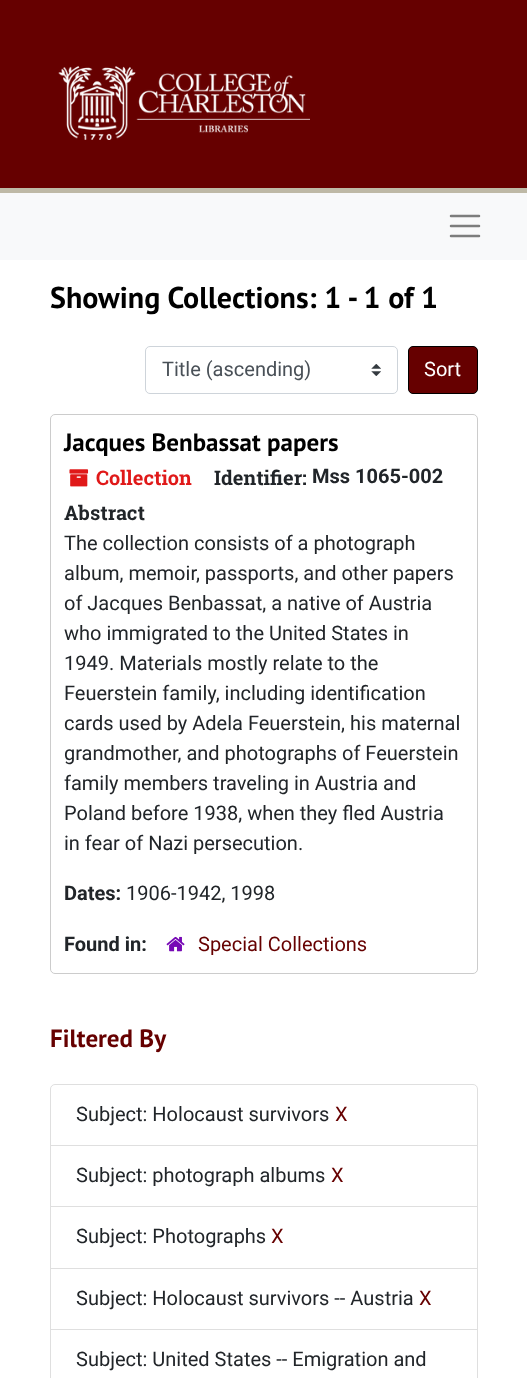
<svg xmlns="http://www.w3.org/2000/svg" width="527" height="1378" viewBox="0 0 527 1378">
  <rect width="100%" height="100%" fill="rgb(255,255,255)"/>
  <rect x="0" y="0" width="527" height="188" fill="rgb(102,0,0)"/>
  <rect x="0" y="188" width="527" height="5" fill="rgb(190,185,166)"/>
  <image x="58" y="66" width="252" height="74" href="pic1.png"/>
  <rect x="0" y="193" width="527" height="67" fill="rgb(248,249,250)"/>
  <path d="M451 216H479M451 226H479M451 236H479" fill="none" stroke="rgb(124,125,125)" stroke-width="2.5" stroke-linecap="round"/>
  <text x="50" y="308" font-family="PT Sans" font-size="30" font-weight="bold" fill="rgb(0,0,0)">Showing Collections: 1 - 1 of 1</text>
  <image x="371" y="364" width="10" height="12" href="pic2.png"/>
  <rect x="145.5" y="346.5" width="252" height="47" rx="4.5" fill="none" stroke="rgb(206,212,218)"/>
  <text x="162" y="376" font-family="Roboto" font-size="20" fill="rgb(73,80,87)">Title (ascending)</text>
  <rect x="408.5" y="346.5" width="69" height="47" rx="4.5" fill="rgb(102,0,0)" stroke="rgb(0,0,0)"/>
  <text x="424" y="376" font-family="Roboto" font-size="20" fill="rgb(255,255,255)">Sort</text>
  <rect x="50.5" y="414.5" width="427" height="559" rx="4.5" fill="none" stroke="rgb(204,204,204)"/>
  <text x="64" y="451" font-family="PT Sans" font-size="25" font-weight="bold" fill="rgb(0,0,0)">Jacques Benbassat papers</text>
  <image x="69" y="469" width="20" height="18" href="pic3.png"/>
  <text x="96" y="485" font-family="Roboto Slab" font-size="20" font-weight="bold" fill="rgb(224,25,25)">Collection</text>
  <text x="214" y="485" font-family="Roboto Slab" font-size="20" font-weight="bold" fill="rgb(33,37,41)">Identifier:</text>
  <text x="312" y="483" font-family="Roboto" font-size="20" font-weight="bold" fill="rgb(33,37,41)">Mss 1065-002</text>
  <text x="64" y="520" font-family="Roboto Slab" font-size="20" font-weight="bold" fill="rgb(33,37,41)">Abstract</text>
  <g font-family="Roboto" font-size="20" fill="rgb(33,37,41)">
    <text>
      <tspan x="64" y="550">The collection consists of a photograph</tspan>
      <tspan x="64" y="580">album, memoir, passports, and other papers</tspan>
      <tspan x="64" y="610">of Jacques Benbassat, a native of Austria</tspan>
      <tspan x="64" y="640">who immigrated to the United States in</tspan>
      <tspan x="64" y="670">1949. Materials mostly relate to the</tspan>
      <tspan x="64" y="700">Feuerstein family, including identification</tspan>
      <tspan x="64" y="730">cards used by Adela Feuerstein, his maternal</tspan>
      <tspan x="64" y="760">grandmother, and photographs of Feuerstein</tspan>
      <tspan x="64" y="790">family members traveling in Austria and</tspan>
      <tspan x="64" y="820">Poland before 1938, when they fled Austria</tspan>
      <tspan x="64" y="850">in fear of Nazi persecution.</tspan>
    </text>
  </g>
  <text x="64" y="900" font-family="Roboto" font-size="20" font-weight="bold" fill="rgb(33,37,41)">Dates:</text>
  <text x="126" y="900" font-family="Roboto" font-size="20" fill="rgb(33,37,41)">1906-1942, 1998</text>
  <text x="64" y="951" font-family="Roboto" font-size="20" font-weight="bold" fill="rgb(33,37,41)">Found in:</text>
  <image x="166" y="936" width="19" height="16" href="pic4.png"/>
  <text x="198" y="951" font-family="Roboto" font-size="20" fill="rgb(102,0,0)">Special Collections</text>
  <text x="50" y="1047" font-family="PT Sans" font-size="25" font-weight="bold" fill="rgb(102,0,0)">Filtered By</text>
  <path d="M55 1084.5H473C475.5 1084.5 477.5 1086.5 477.5 1089V1145.5H50.5V1089C50.5 1086.5 52.5 1084.5 55 1084.5Z" fill="none" stroke="rgb(223,223,223)"/>
  <text x="76" y="1121" font-family="Roboto" font-size="20" fill="rgb(33,37,41)">Subject: Holocaust survivors</text>
  <text x="335" y="1121" font-family="Roboto" font-size="20" fill="rgb(102,0,0)">X</text>
  <rect x="50.5" y="1145.5" width="427" height="62" fill="none" stroke="rgb(223,223,223)"/>
  <text x="76" y="1182" font-family="Roboto" font-size="20" fill="rgb(33,37,41)">Subject: photograph albums</text>
  <text x="331" y="1182" font-family="Roboto" font-size="20" fill="rgb(102,0,0)">X</text>
  <rect x="51" y="1207" width="426" height="1" fill="rgb(255,255,255)"/>
  <rect x="50.5" y="1206.5" width="427" height="62" fill="none" stroke="rgb(223,223,223)"/>
  <text x="76" y="1243" font-family="Roboto" font-size="20" fill="rgb(33,37,41)">Subject: Photographs</text>
  <text x="271" y="1243" font-family="Roboto" font-size="20" fill="rgb(102,0,0)">X</text>
  <rect x="50.5" y="1268.5" width="427" height="61" fill="none" stroke="rgb(223,223,223)"/>
  <text x="76" y="1305" font-family="Roboto" font-size="20" fill="rgb(33,37,41)">Subject: Holocaust survivors -- Austria</text>
  <text x="419" y="1305" font-family="Roboto" font-size="20" fill="rgb(102,0,0)">X</text>
  <rect x="50.5" y="1329.5" width="427" height="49" fill="none" stroke="rgb(223,223,223)"/>
  <text x="76" y="1366" font-family="Roboto" font-size="20" fill="rgb(33,37,41)">Subject: United States -- Emigration and</text>
</svg>
